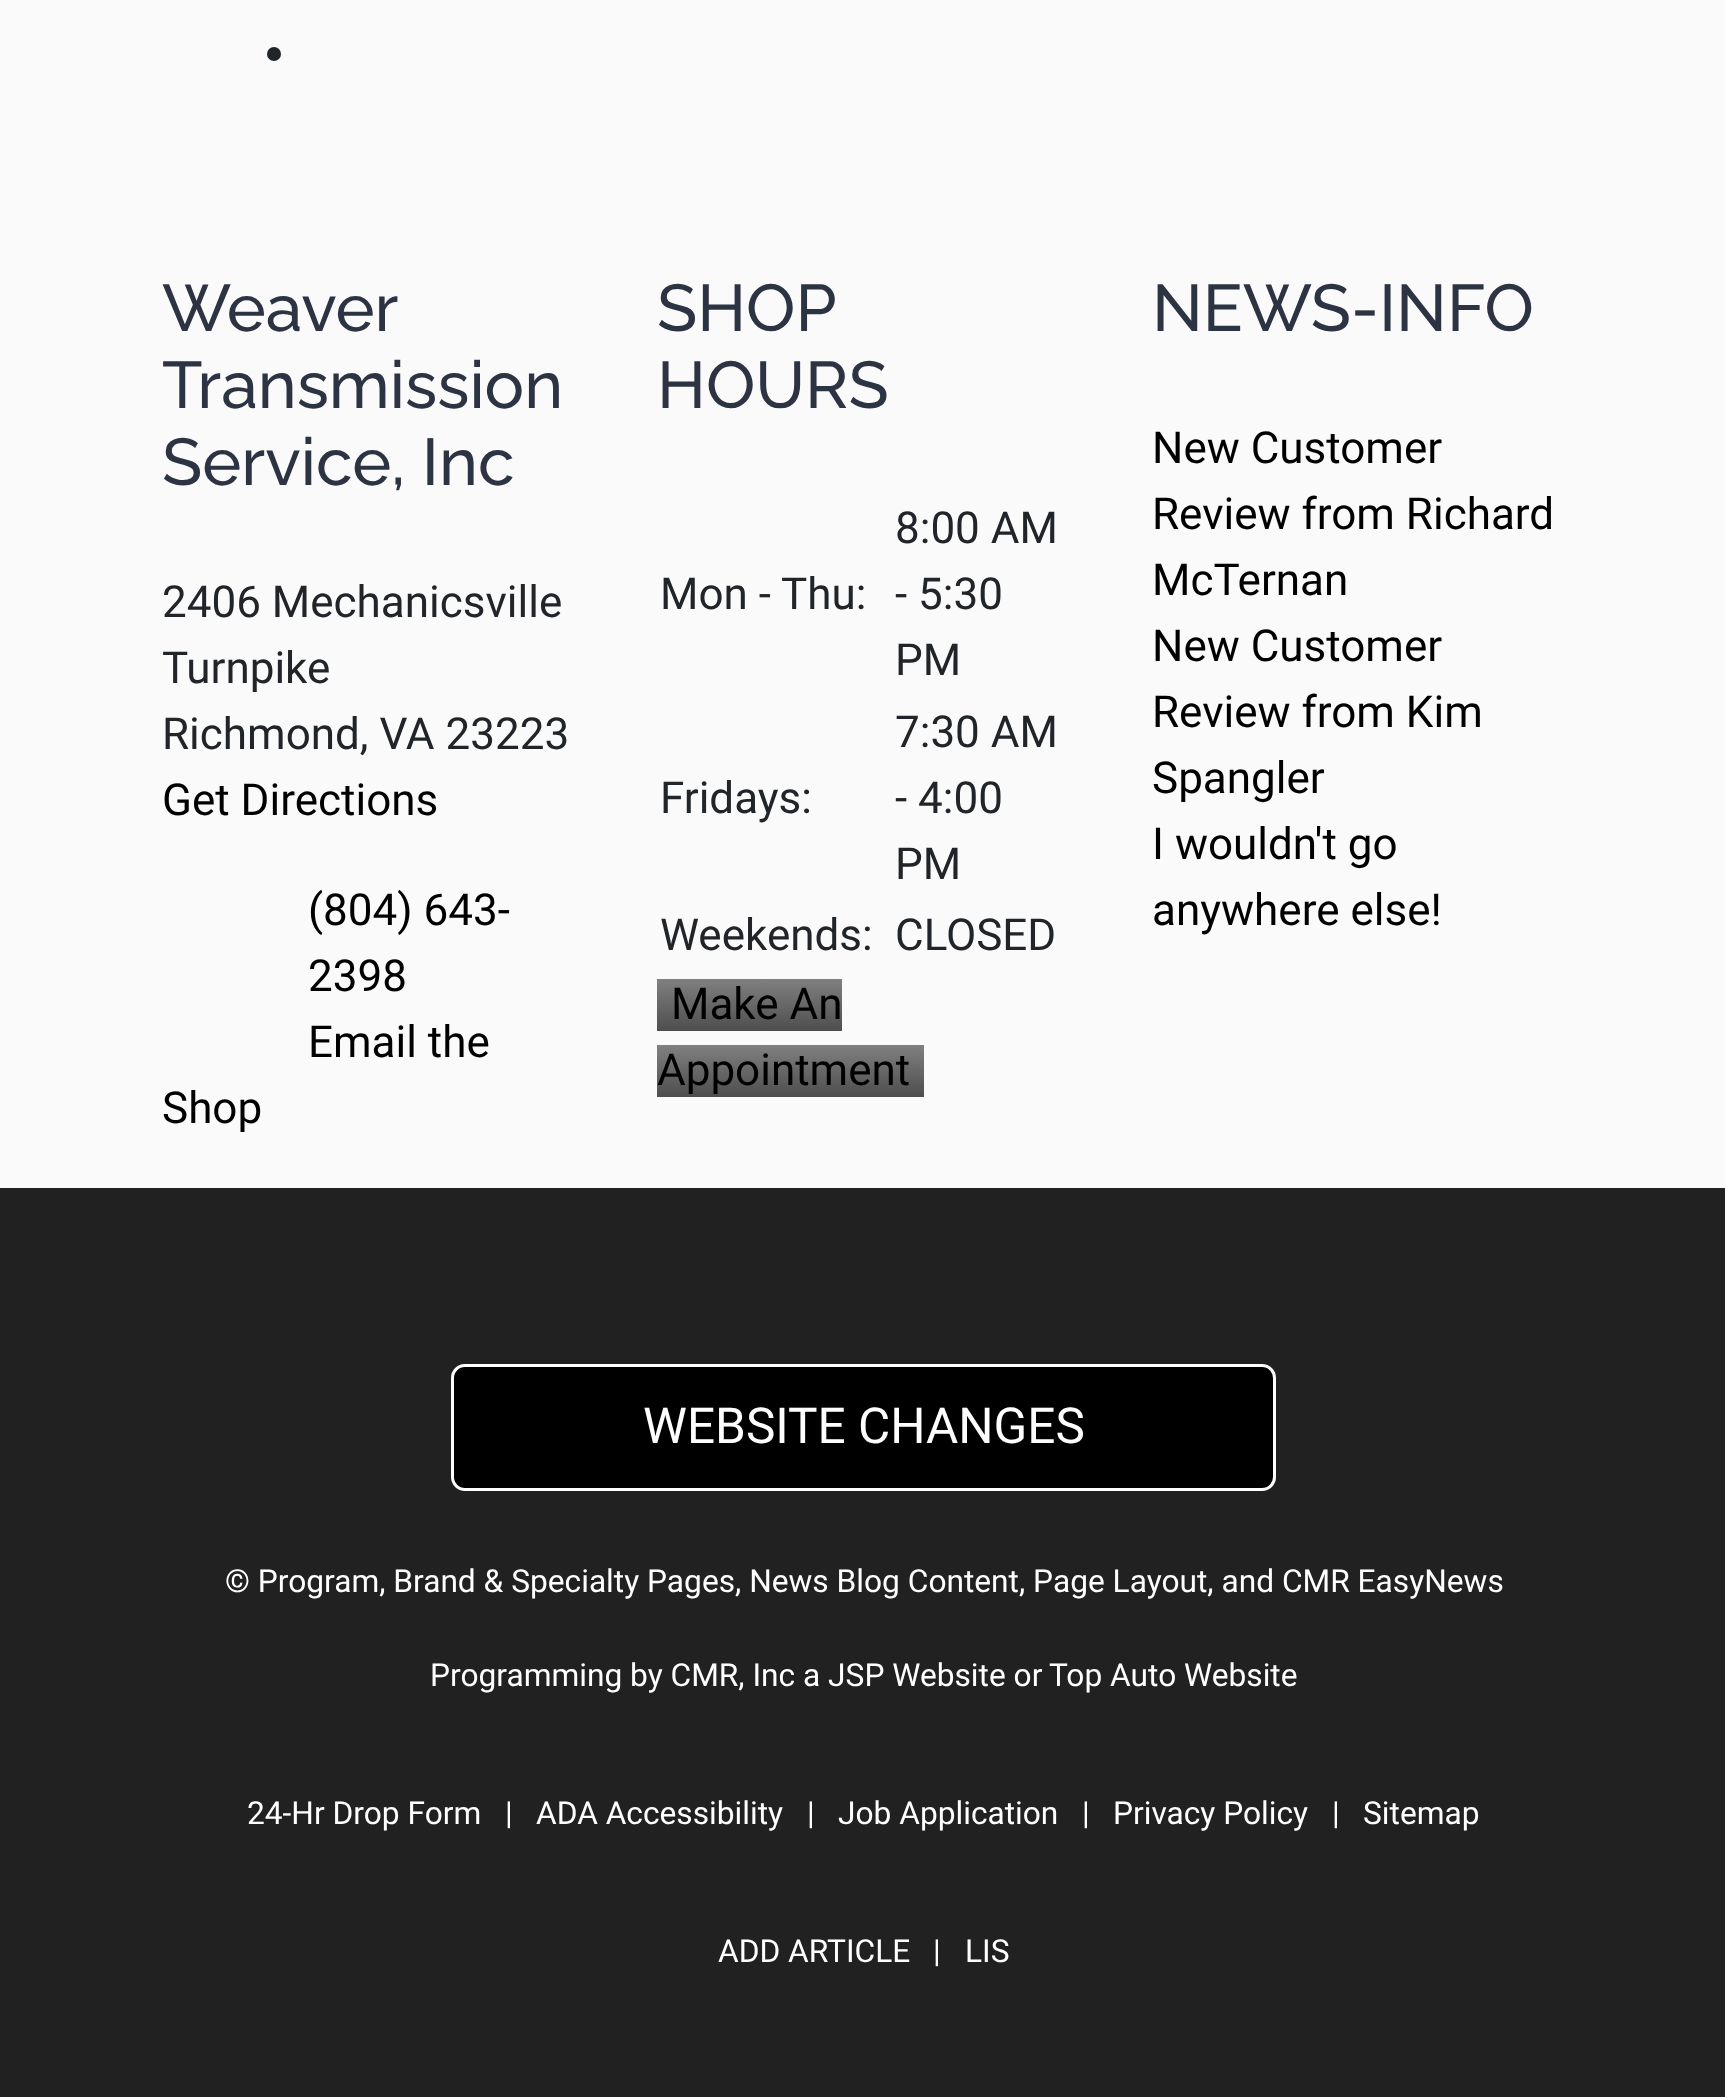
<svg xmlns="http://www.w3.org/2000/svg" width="1725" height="2097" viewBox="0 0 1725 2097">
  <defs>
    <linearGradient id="g1" gradientUnits="userSpaceOnUse" x1="749" y1="979" x2="749" y2="1031"><stop offset="0" stop-color="rgb(128,128,128)"/><stop offset="1" stop-color="rgb(79,78,78)"/></linearGradient>
    <linearGradient id="g2" gradientUnits="userSpaceOnUse" x1="791" y1="1045" x2="791" y2="1097"><stop offset="0" stop-color="rgb(128,128,128)"/><stop offset="1" stop-color="rgb(79,78,78)"/></linearGradient>
  </defs>
  <rect width="100%" height="100%" fill="rgb(33,33,33)"/>
  <rect x="0" y="0" width="1725" height="1188" fill="rgb(250,250,250)"/>
  <circle cx="274" cy="54" r="7" fill="rgb(33,37,41)"/>
  <g font-family="Raleway" font-size="66" font-weight="500" fill="rgb(44,51,67)">
    <text>
      <tspan x="162" y="331">Weaver</tspan>
      <tspan x="162" y="408">Transmission</tspan>
      <tspan x="162" y="485">Service, Inc</tspan>
    </text>
  </g>
  <g font-family="Roboto" font-size="44" fill="rgb(33,37,41)">
    <text>
      <tspan x="162" y="617">2406 Mechanicsville</tspan>
      <tspan x="162" y="683">Turnpike</tspan>
      <tspan x="162" y="749">Richmond, VA 23223</tspan>
    </text>
  </g>
  <g font-family="Roboto" font-size="44" fill="rgb(0,0,0)">
    <text x="162" y="815">Get Directions</text>
    <text>
      <tspan x="308" y="925">(804) 643-</tspan>
      <tspan x="308" y="991">2398</tspan>
      <tspan x="308" y="1057">Email the</tspan>
    </text>
    <text x="162" y="1123">Shop</text>
  </g>
  <g font-family="Raleway" font-size="66" font-weight="500" fill="rgb(44,51,67)">
    <text>
      <tspan x="657" y="331">SHOP</tspan>
      <tspan x="657" y="408">HOURS</tspan>
    </text>
  </g>
  <g font-family="Roboto" font-size="44" fill="rgb(33,37,41)">
    <text x="660" y="609">Mon - Thu:</text>
    <text>
      <tspan x="895" y="543">8:00 AM</tspan>
      <tspan x="895" y="609">- 5:30</tspan>
      <tspan x="895" y="675">PM</tspan>
    </text>
    <text x="660" y="813">Fridays:</text>
    <text>
      <tspan x="895" y="747">7:30 AM</tspan>
      <tspan x="895" y="813">- 4:00</tspan>
      <tspan x="895" y="879">PM</tspan>
    </text>
    <text x="660" y="950">Weekends:</text>
    <text x="895" y="950">CLOSED</text>
  </g>
  <rect x="657" y="979" width="185" height="52" fill="url(#g1)"/>
  <text x="671" y="1019" font-family="Roboto" font-size="44" fill="rgb(0,0,0)">Make An</text>
  <rect x="657" y="1045" width="267" height="52" fill="url(#g2)"/>
  <text x="657" y="1085" font-family="Roboto" font-size="44" fill="rgb(0,0,0)">Appointment</text>
  <text x="1152" y="331" font-family="Raleway" font-size="66" font-weight="500" fill="rgb(44,51,67)">NEWS-INFO</text>
  <g font-family="Roboto" font-size="44" fill="rgb(0,0,0)">
    <text>
      <tspan x="1152" y="463">New Customer</tspan>
      <tspan x="1152" y="529">Review from Richard</tspan>
      <tspan x="1152" y="595">McTernan</tspan>
      <tspan x="1152" y="661">New Customer</tspan>
      <tspan x="1152" y="727">Review from Kim</tspan>
      <tspan x="1152" y="793">Spangler</tspan>
      <tspan x="1152" y="859">I wouldn't go</tspan>
      <tspan x="1152" y="925">anywhere else!</tspan>
    </text>
  </g>
  <rect x="452.5" y="1365.5" width="822" height="124" rx="12.5" fill="rgb(0,0,0)" stroke="rgb(255,255,255)" stroke-width="3"/>
  <text x="643" y="1443" font-family="Roboto" font-size="49.5" fill="rgb(255,255,255)">WEBSITE CHANGES</text>
  <g font-family="Roboto" font-size="31.7" fill="rgb(255,255,255)">
    <text x="225" y="1592">© Program, Brand &amp; Specialty Pages, News Blog Content, Page Layout, and CMR EasyNews</text>
    <text x="430" y="1686">Programming by CMR, Inc a JSP Website or</text>
    <text x="1049" y="1686">Top Auto Website</text>
    <text x="247" y="1824">24-Hr Drop Form</text>
    <text x="505" y="1824">|</text>
    <text x="536" y="1824">ADA Accessibility</text>
    <text x="807" y="1824">|</text>
    <text x="838" y="1824">Job Application</text>
    <text x="1082" y="1824">|</text>
    <text x="1113" y="1824">Privacy Policy</text>
    <text x="1332" y="1824">|</text>
    <text x="1363" y="1824">Sitemap</text>
    <text x="718" y="1962">ADD ARTICLE</text>
    <text x="933" y="1962">|</text>
    <text x="965" y="1962">LIS</text>
  </g>
</svg>
